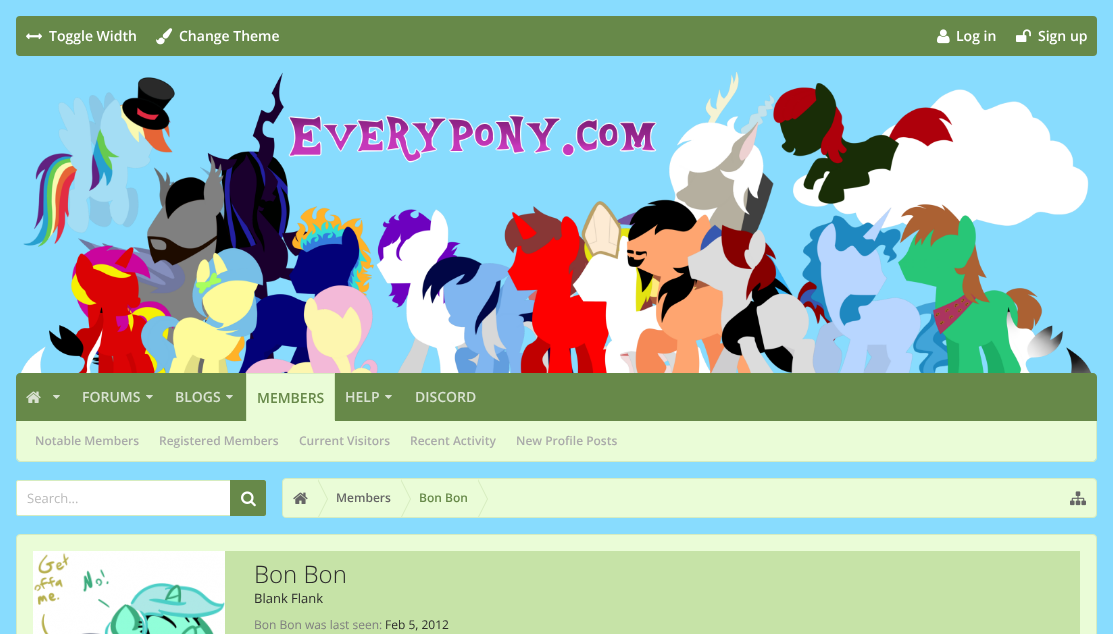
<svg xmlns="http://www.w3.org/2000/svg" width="1113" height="634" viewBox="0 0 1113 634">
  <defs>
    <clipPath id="clip1"><rect x="283" y="479" width="813" height="38" rx="3"/></clipPath>
  </defs>
  <rect width="100%" height="100%" fill="rgb(136,220,254)"/>
  <rect x="16" y="16" width="1081" height="40" rx="4" fill="rgb(103,137,73)"/>
  <image x="26" y="33" width="17" height="7" href="pic1.png"/>
  <text x="49" y="41" font-family="Open Sans" font-size="14" font-weight="600" fill="rgb(255,255,255)">Toggle Width</text>
  <image x="156" y="28" width="17" height="17" href="pic2.png"/>
  <text x="179" y="41" font-family="Open Sans" font-size="14" font-weight="600" fill="rgb(255,255,255)">Change Theme</text>
  <image x="937" y="29" width="13" height="15" href="pic3.png"/>
  <text x="956" y="41" font-family="Open Sans" font-size="14" font-weight="600" fill="rgb(255,255,255)">Log in</text>
  <image x="1016" y="29" width="15" height="13" href="pic4.png"/>
  <text x="1038" y="41" font-family="Open Sans" font-size="14" font-weight="600" fill="rgb(255,255,255)">Sign up</text>
  <image x="20" y="72" width="1072" height="301" href="pic5.png"/>
  <path d="M20 373H1093C1095 373 1097 375 1097 377V421H16V377C16 375 18 373 20 373Z" fill="rgb(103,137,73)"/>
  <image x="26" y="391" width="15" height="12" href="pic6.png"/>
  <image x="53" y="395" width="7" height="4" href="pic7.png"/>
  <text x="82" y="402" font-family="Open Sans" font-size="14" font-weight="600" fill="rgb(217,226,210)">FORUMS</text>
  <image x="146" y="395" width="7" height="4" href="pic7.png"/>
  <text x="175" y="402" font-family="Open Sans" font-size="14" font-weight="600" fill="rgb(217,226,210)">BLOGS</text>
  <image x="226" y="395" width="7" height="4" href="pic7.png"/>
  <text x="415" y="402" font-family="Open Sans" font-size="14" font-weight="600" fill="rgb(217,226,210)">DISCORD</text>
  <rect x="247" y="374" width="87" height="46" fill="rgb(234,252,215)"/>
  <rect x="246" y="373" width="89" height="1" fill="rgb(214,236,191)"/>
  <rect x="334" y="373" width="1" height="48" fill="rgb(214,236,191)"/>
  <rect x="246" y="420" width="89" height="1" fill="rgb(234,252,215)"/>
  <rect x="246" y="373" width="1" height="48" fill="rgb(214,236,191)"/>
  <text x="257" y="403" font-family="Open Sans" font-size="14" font-weight="600" fill="rgb(103,137,73)">MEMBERS</text>
  <path d="M17 421H1096V458C1096 459.5 1094.5 461 1093 461H20C18.5 461 17 459.5 17 458Z" fill="rgb(234,252,215)"/>
  <path d="M16 421H1097V458C1097 460 1095 462 1093 462H20C18 462 16 460 16 458ZM17 421H1096V458C1096 460 1095 461 1093 461H20C18 461 17 460 17 458Z" fill="rgb(214,236,191)" fill-rule="evenodd"/>
  <g font-family="Open Sans" font-size="12" font-weight="600" fill="rgb(170,170,170)">
    <text x="35" y="445">Notable Members</text>
    <text x="159" y="445">Registered Members</text>
    <text x="299" y="445">Current Visitors</text>
    <text x="410" y="445">Recent Activity</text>
    <text x="516" y="445">New Profile Posts</text>
  </g>
  <text x="345" y="402" font-family="Open Sans" font-size="14" font-weight="600" fill="rgb(217,226,210)">HELP</text>
  <image x="385" y="395" width="7" height="4" href="pic7.png"/>
  <rect x="16.5" y="480.5" width="249" height="35" rx="1.5" fill="rgb(255,255,255)" stroke="rgb(214,236,191)"/>
  <text x="27" y="503" font-family="Open Sans" font-size="13" fill="rgb(187,187,187)">Search...</text>
  <path d="M230 480H264C265 480 266 481 266 482V514C266 515 265 516 264 516H230Z" fill="rgb(103,137,73)"/>
  <image x="241" y="491" width="15" height="16" href="pic8.png"/>
  <rect x="282.5" y="478.5" width="814" height="39" rx="3.5" fill="rgb(234,252,215)" stroke="rgb(214,236,191)"/>
  <g clip-path="url(#clip1)">
    <path d="M287 479H318V518H287C285 518 283 516 283 514V483C283 481 285 479 287 479Z" fill="rgb(234,252,215)"/>
  </g>
  <image x="293" y="492" width="15" height="12" href="pic9.png"/>
  <path d="M319 517H318V479L328 499Z" fill="rgb(214,236,191)"/>
  <path d="M318 517H317V479L327 499Z" fill="rgb(234,252,215)"/>
  <text x="336" y="502" font-family="Open Sans" font-size="12" font-weight="600" fill="rgb(102,102,102)">Members</text>
  <path d="M402 517H401V479L411 499Z" fill="rgb(214,236,191)"/>
  <path d="M401 517H400V479L410 499Z" fill="rgb(234,252,215)"/>
  <text x="419" y="502" font-family="Open Sans" font-size="12" font-weight="600" fill="rgb(103,137,73)">Bon Bon</text>
  <path d="M479 517H478V479L488 499Z" fill="rgb(214,236,191)"/>
  <path d="M478 517H477V479L487 499Z" fill="rgb(234,252,215)"/>
  <image x="1070" y="491" width="16" height="15" href="pic10.png"/>
  <rect x="16.5" y="534.5" width="1080" height="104" rx="3.5" fill="rgb(234,252,215)" stroke="rgb(214,236,191)"/>
  <rect x="225" y="551" width="855" height="83" fill="rgb(198,227,167)"/>
  <image x="33" y="551" width="192" height="83" href="pic11.png"/>
  <text x="254" y="583" font-family="Open Sans" font-size="24" font-weight="300" fill="rgb(44,44,44)">Bon Bon</text>
  <text x="254" y="603" font-family="Open Sans" font-size="13" fill="rgb(44,44,44)">Blank Flank</text>
  <text x="254" y="629" font-family="Open Sans" font-size="12" fill="rgb(127,127,127)">Bon Bon was last seen:</text>
  <text x="385" y="629" font-family="Open Sans" font-size="12" fill="rgb(44,44,44)">Feb 5, 2012</text>
</svg>
